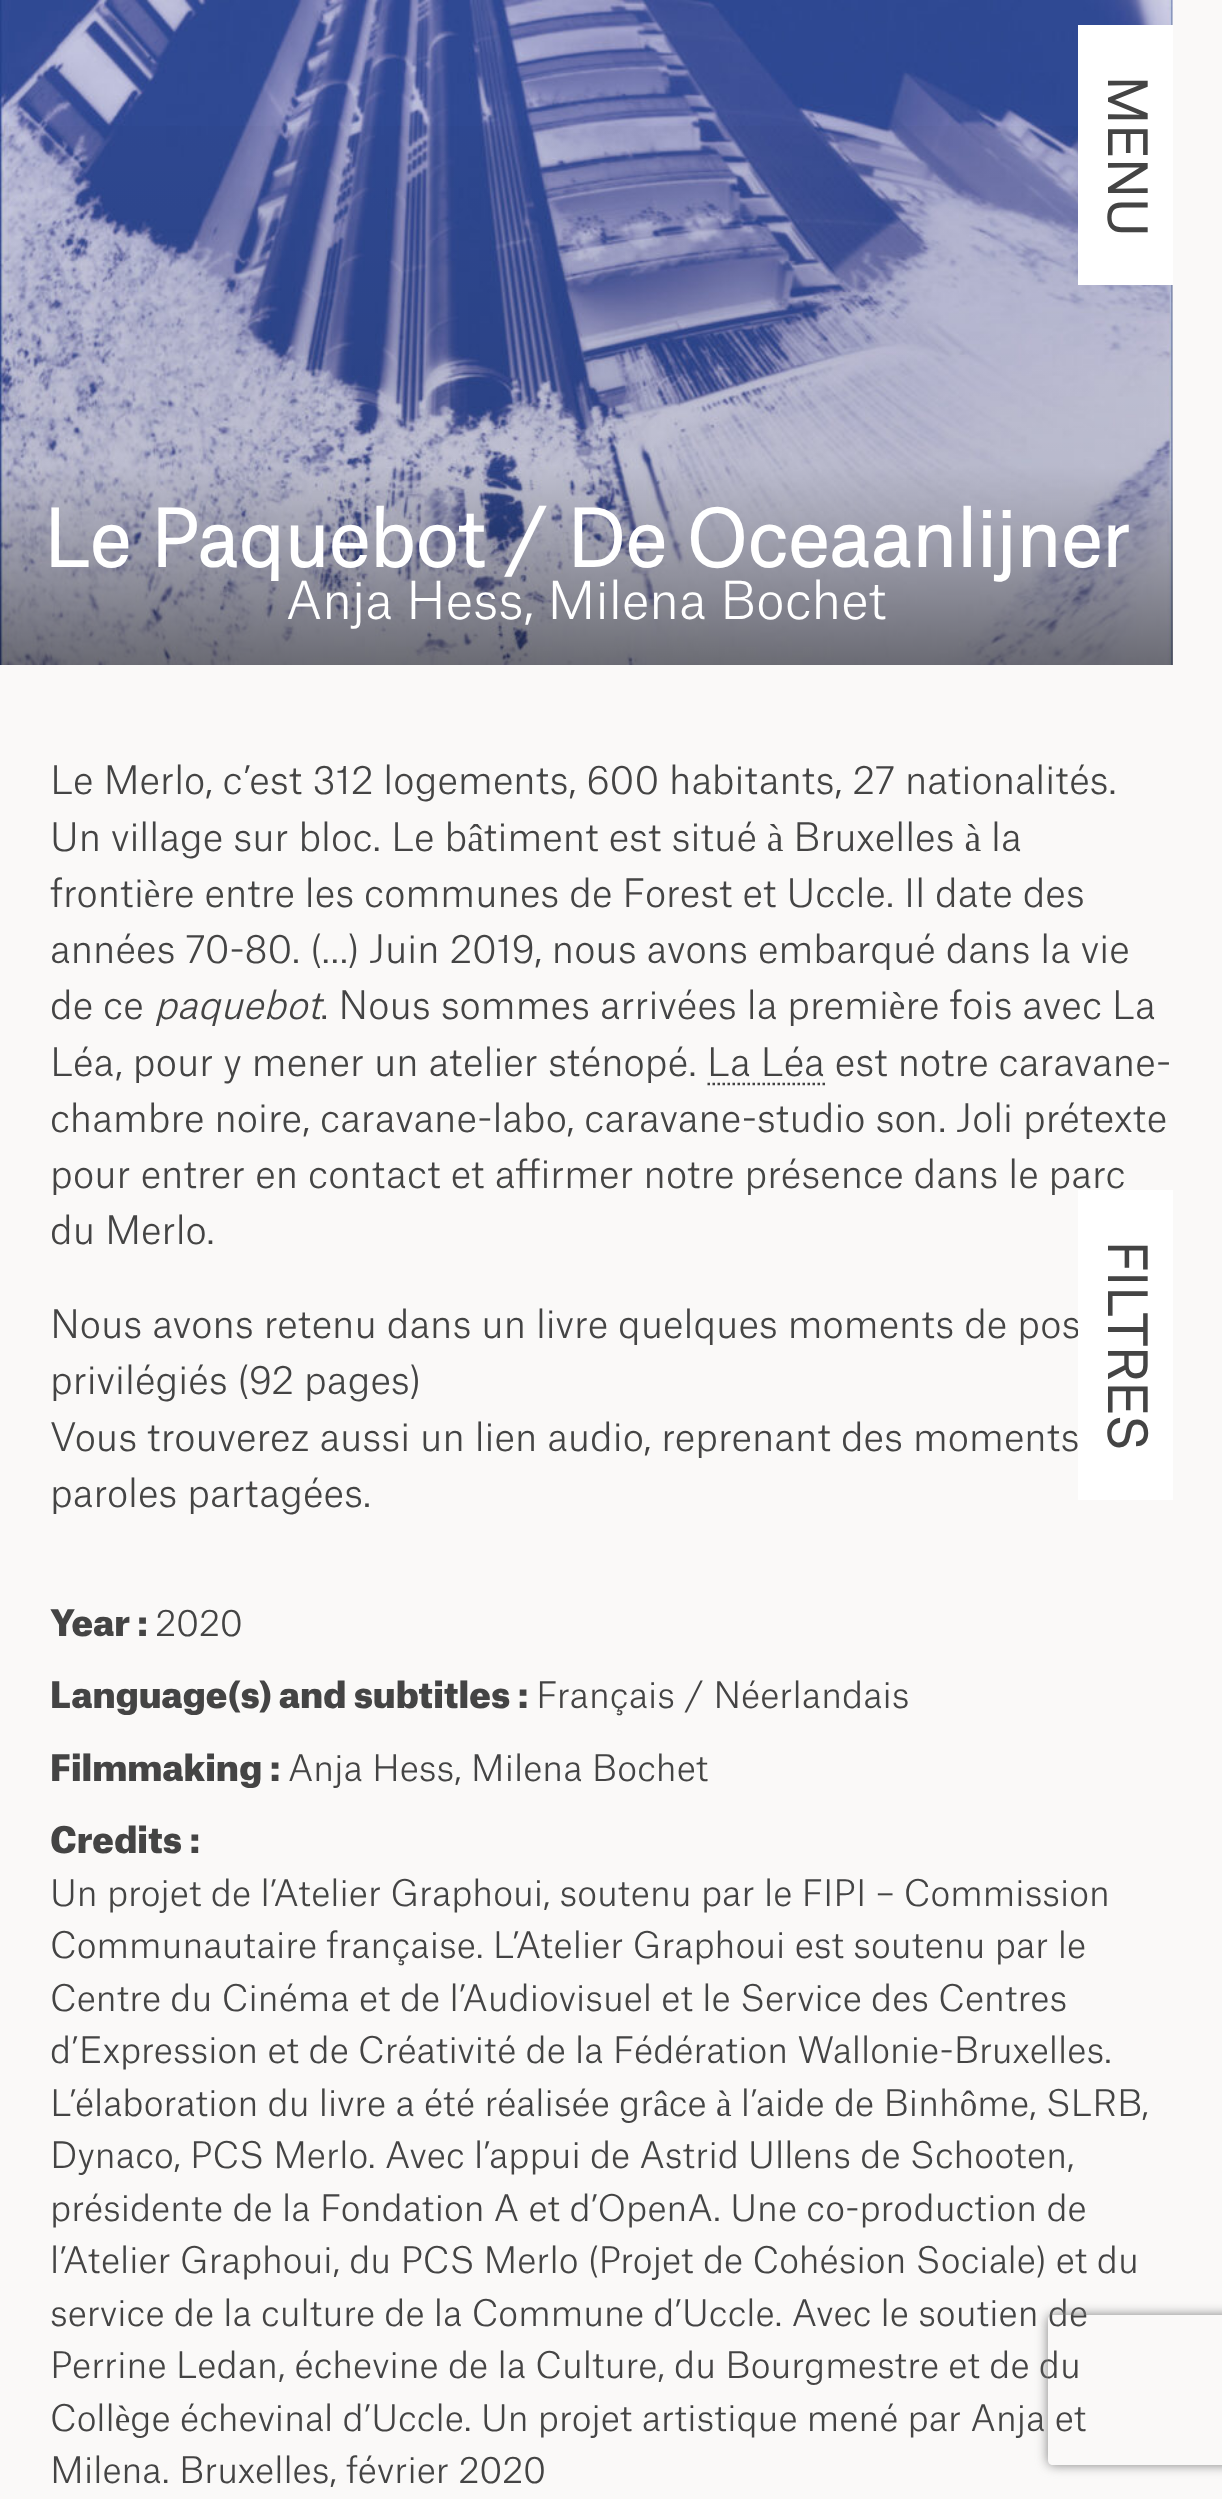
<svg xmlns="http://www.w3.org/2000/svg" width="1222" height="2499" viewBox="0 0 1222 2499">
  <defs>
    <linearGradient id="g1" gradientUnits="userSpaceOnUse" x1="586" y1="0" x2="586" y2="665"><stop offset="0.05" stop-color="rgb(0,0,0)" stop-opacity="0"/><stop offset="0.7" stop-color="rgb(0,0,0)" stop-opacity="0.1"/><stop offset="1" stop-color="rgb(0,0,0)" stop-opacity="0.5"/></linearGradient>
    <clipPath id="clip1"><path d="M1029 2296H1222V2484H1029ZM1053 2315H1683C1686 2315 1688 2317 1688 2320V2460C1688 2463 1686 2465 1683 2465H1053C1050 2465 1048 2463 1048 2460V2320C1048 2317 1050 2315 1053 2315Z" clip-rule="evenodd"/></clipPath>
  </defs>
  <rect width="100%" height="100%" fill="rgb(250,249,248)"/>
  <image x="0" y="0" width="1173" height="665" href="pic1.png"/>
  <rect x="0" y="126" width="1173" height="539" fill="url(#g1)"/>
  <rect x="1078" y="25" width="95" height="260" fill="rgb(255,255,255)"/>
  <text x="1108" y="75" transform="rotate(90 1108 75)" font-family="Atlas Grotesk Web" font-size="50" font-weight="bold" fill="rgb(68,68,68)">MENU</text>
  <text x="43" y="567" font-family="Atlas Grotesk Web" font-size="75" font-weight="bold" fill="rgb(255,255,255)">Le Paquebot / De Oceaanlijner</text>
  <text x="286" y="619" font-family="Atlas Grotesk Web" font-size="50" font-weight="300" fill="rgb(255,255,255)">Anja Hess, Milena Bochet</text>
  <g font-family="Atlas Grotesk Web" font-size="37.5" font-weight="300" fill="rgb(68,68,68)">
    <text>
      <tspan x="50" y="794">Le Merlo, c’est 312 logements, 600 habitants, 27 nationalités.</tspan>
      <tspan x="50" y="851">Un village sur bloc. Le bâtiment est situé à Bruxelles à la</tspan>
      <tspan x="50" y="907">frontière entre les communes de Forest et Uccle. Il date des</tspan>
      <tspan x="50" y="963">années 70-80. (…) Juin 2019, nous avons embarqué dans la vie</tspan>
      <tspan x="50" y="1019">de ce</tspan>
    </text>
  </g>
  <text x="154" y="1019" font-family="Atlas Grotesk Web" font-size="37.5" font-weight="300" font-style="italic" fill="rgb(68,68,68)">paquebot</text>
  <g font-family="Atlas Grotesk Web" font-size="37.5" font-weight="300" fill="rgb(68,68,68)">
    <text x="320" y="1019">. Nous sommes arrivées la première fois avec La</text>
    <text x="50" y="1076">Léa, pour y mener un atelier sténopé. La Léa est notre caravane-</text>
  </g>
  <path d="M707.5 1084H825" fill="none" stroke="rgb(68,68,68)" stroke-width="2.5" stroke-dasharray="2.5 2.5"/>
  <g font-family="Atlas Grotesk Web" font-size="37.5" font-weight="300" fill="rgb(68,68,68)">
    <text>
      <tspan x="50" y="1132">chambre noire, caravane-labo, caravane-studio son. Joli prétexte</tspan>
      <tspan x="50" y="1188">pour entrer en contact et affirmer notre présence dans le parc</tspan>
      <tspan x="50" y="1244">du Merlo.</tspan>
    </text>
    <text>
      <tspan x="50" y="1338">Nous avons retenu dans un livre quelques moments de pos</tspan>
      <tspan x="50" y="1394">privilégiés (92 pages)</tspan>
      <tspan x="50" y="1451">Vous trouverez aussi un lien audio, reprenant des moments</tspan>
      <tspan x="50" y="1507">paroles partagées.</tspan>
    </text>
  </g>
  <text x="50" y="1636" font-family="Atlas Grotesk Web" font-size="35" font-weight="900" fill="rgb(68,68,68)">Year :</text>
  <text x="155" y="1636" font-family="Atlas Grotesk Web" font-size="35" font-weight="300" fill="rgb(68,68,68)">2020</text>
  <text x="50" y="1708" font-family="Atlas Grotesk Web" font-size="35" font-weight="900" fill="rgb(68,68,68)">Language(s) and subtitles :</text>
  <text x="536" y="1708" font-family="Atlas Grotesk Web" font-size="35" font-weight="300" fill="rgb(68,68,68)">Français / Néerlandais</text>
  <text x="50" y="1781" font-family="Atlas Grotesk Web" font-size="35" font-weight="900" fill="rgb(68,68,68)">Filmmaking :</text>
  <text x="288" y="1781" font-family="Atlas Grotesk Web" font-size="35" font-weight="300" fill="rgb(68,68,68)">Anja Hess, Milena Bochet</text>
  <text x="50" y="1853" font-family="Atlas Grotesk Web" font-size="35" font-weight="900" fill="rgb(68,68,68)">Credits :</text>
  <g font-family="Atlas Grotesk Web" font-size="35" font-weight="300" fill="rgb(68,68,68)">
    <text>
      <tspan x="50" y="1906">Un projet de l’Atelier Graphoui, soutenu par le FIPI – Commission</tspan>
      <tspan x="50" y="1958">Communautaire française. L’Atelier Graphoui est soutenu par le</tspan>
      <tspan x="50" y="2011">Centre du Cinéma et de l’Audiovisuel et le Service des Centres</tspan>
      <tspan x="50" y="2063">d’Expression et de Créativité de la Fédération Wallonie-Bruxelles.</tspan>
      <tspan x="50" y="2116">L’élaboration du livre a été réalisée grâce à l’aide de Binhôme, SLRB,</tspan>
      <tspan x="50" y="2168">Dynaco, PCS Merlo. Avec l’appui de Astrid Ullens de Schooten,</tspan>
      <tspan x="50" y="2221">présidente de la Fondation A et d’OpenA. Une co-production de</tspan>
      <tspan x="50" y="2273">l’Atelier Graphoui, du PCS Merlo (Projet de Cohésion Sociale) et du</tspan>
      <tspan x="50" y="2326">service de la culture de la Commune d’Uccle. Avec le soutien de</tspan>
      <tspan x="50" y="2378">Perrine Ledan, échevine de la Culture, du Bourgmestre et de du</tspan>
      <tspan x="50" y="2431">Collège échevinal d’Uccle. Un projet artistique mené par Anja et</tspan>
      <tspan x="50" y="2483">Milena. Bruxelles, février 2020</tspan>
    </text>
  </g>
  <rect x="1078" y="1190" width="95" height="310" fill="rgb(255,255,255)"/>
  <text x="1108" y="1240" transform="rotate(90 1108 1240)" font-family="Atlas Grotesk Web" font-size="50" font-weight="bold" fill="rgb(68,68,68)">FILTRES</text>
  <g clip-path="url(#clip1)">
    <rect x="1048" y="2315" width="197" height="150" rx="5" fill="rgb(128,128,128)" filter="blur(6px)"/>
  </g>
</svg>
